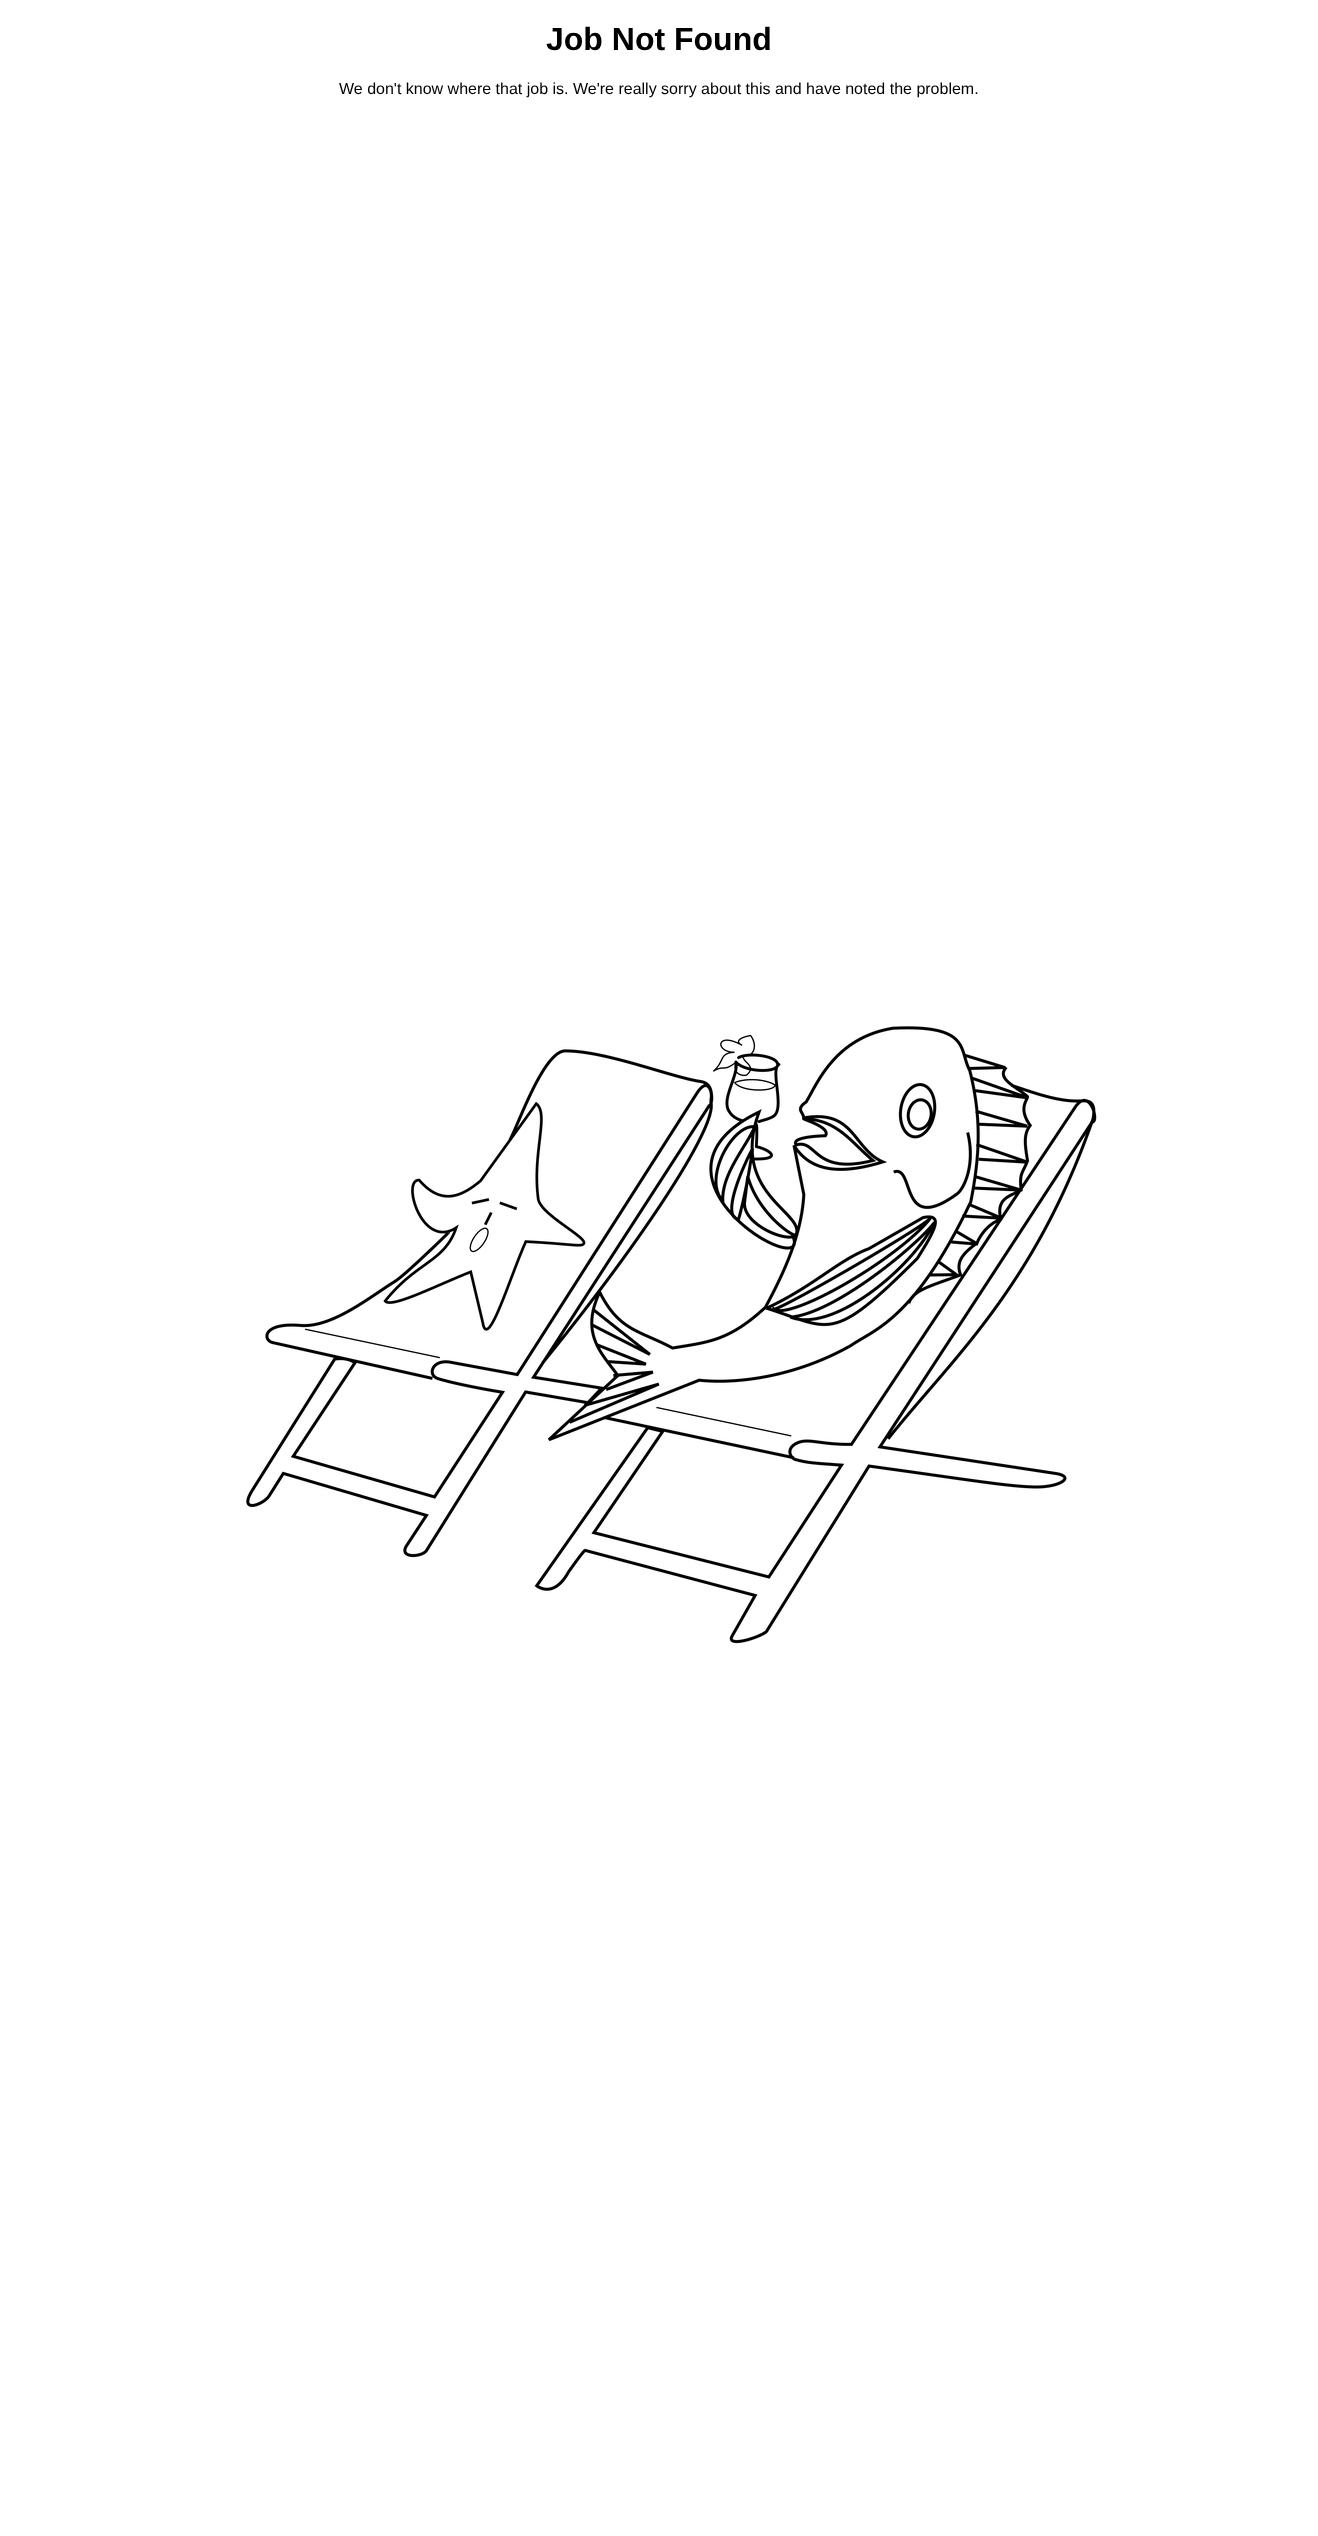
<svg xmlns="http://www.w3.org/2000/svg" width="1318" height="2536" viewBox="0 0 1318 2536">
  <rect width="100%" height="100%" fill="rgb(255,255,255)"/>
  <text x="546" y="50" font-family="Liberation Sans" font-size="32" font-weight="bold" fill="rgb(0,0,0)">Job Not Found</text>
  <text x="339" y="94" font-family="Liberation Sans" font-size="16" fill="rgb(0,0,0)">We don't know where that job is. We're really sorry about this and have noted the problem.</text>
  <image x="246" y="1026" width="851" height="618" href="pic1.png"/>
</svg>
